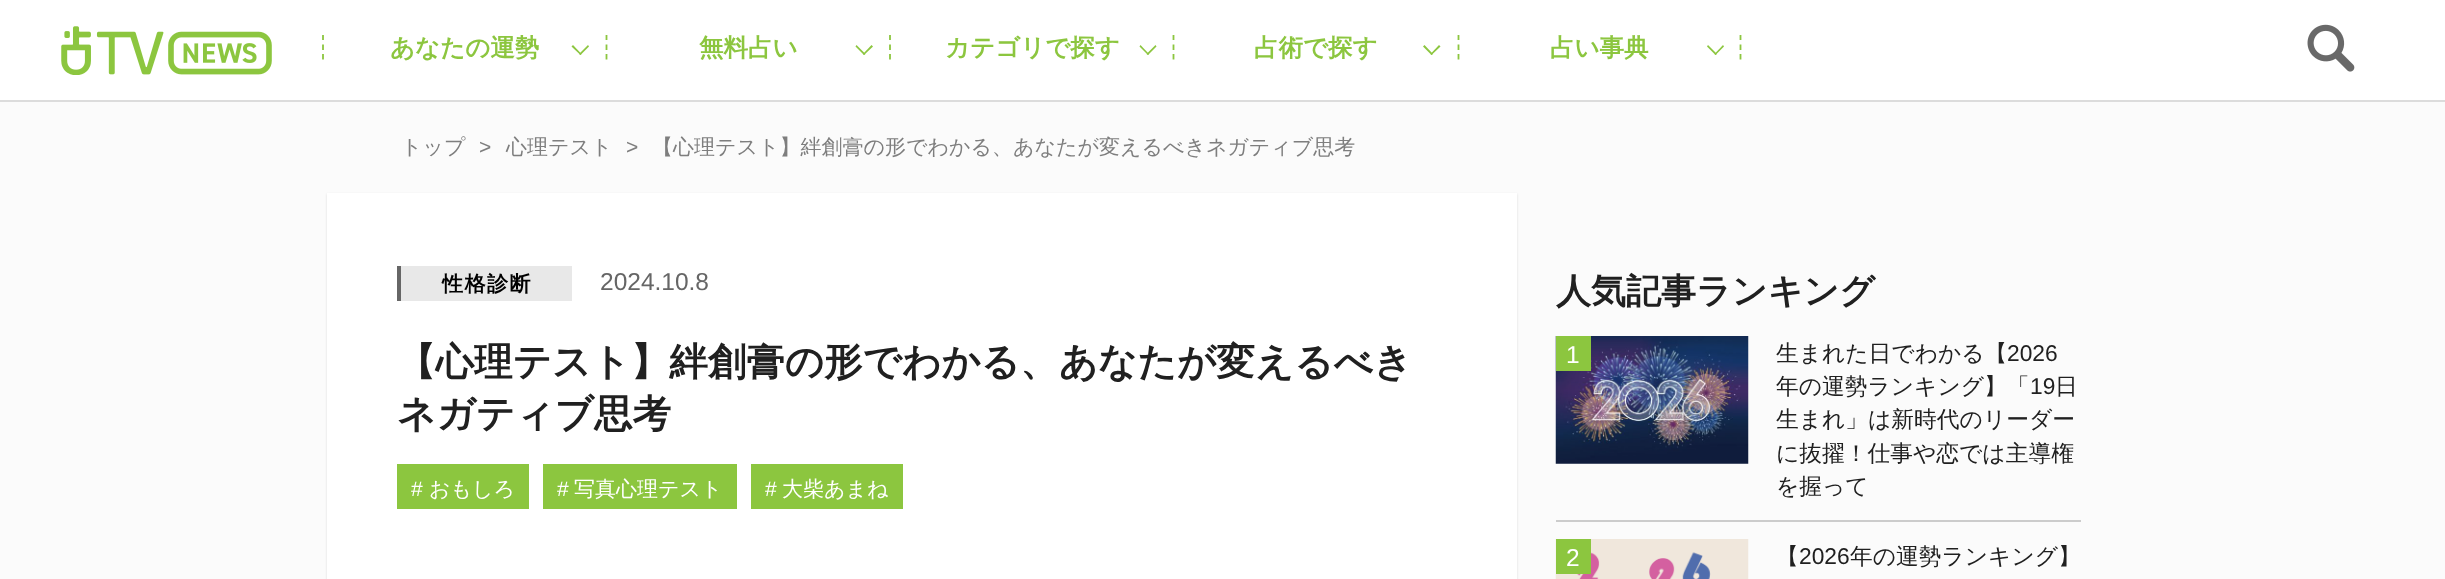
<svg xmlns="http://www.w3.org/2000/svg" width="2445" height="579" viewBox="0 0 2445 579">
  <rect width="100%" height="100%" fill="rgb(251,251,251)"/>
  <rect x="0" y="0" width="2445" height="100" fill="rgb(255,255,255)"/>
  <rect x="0" y="100" width="2445" height="2" fill="rgb(220,220,220)"/>
  <image x="61" y="26" width="211" height="49" href="pic1.png"/>
  <path d="M323 35V40M323 44.5V50M323 54V59.5" fill="none" stroke="rgb(140,198,63)" stroke-width="1.8"/>
  <text x="390" y="56" font-family="WenQuanYi Zen Hei" font-size="24.5" font-weight="bold" fill="rgb(140,198,63)">あなたの運勢</text>
  <path d="M588 45L589 46.5L580.5 55L579 54Z" fill="rgb(140,198,63)"/>
  <path d="M573 45L581.5 54L580.5 55L571.5 46.5Z" fill="rgb(140,198,63)"/>
  <path d="M606.5 35V40M606.5 44.5V50M606.5 54V59.5" fill="none" stroke="rgb(140,198,63)" stroke-width="1.8"/>
  <text x="699" y="56" font-family="WenQuanYi Zen Hei" font-size="24.5" font-weight="bold" fill="rgb(140,198,63)">無料占い</text>
  <path d="M871.5 45L873 46.5L864 55L863 54Z" fill="rgb(140,198,63)"/>
  <path d="M856.5 45L865.5 54L864 55L855.5 46.5Z" fill="rgb(140,198,63)"/>
  <path d="M890 35V40M890 44.5V50M890 54V59.5" fill="none" stroke="rgb(140,198,63)" stroke-width="1.8"/>
  <text x="945" y="56" font-family="WenQuanYi Zen Hei" font-size="24.5" font-weight="bold" fill="rgb(140,198,63)">カテゴリで探す</text>
  <path d="M1155.5 45L1156.5 46.5L1148 55L1146.5 54Z" fill="rgb(140,198,63)"/>
  <path d="M1140.5 45L1149 54L1148 55L1139.5 46.5Z" fill="rgb(140,198,63)"/>
  <path d="M1173.5 35V40M1173.5 44.5V50M1173.5 54V59.5" fill="none" stroke="rgb(140,198,63)" stroke-width="1.8"/>
  <text x="1254" y="56" font-family="WenQuanYi Zen Hei" font-size="24.5" font-weight="bold" fill="rgb(140,198,63)">占術で探す</text>
  <path d="M1439 45L1440.5 46.5L1431.5 55L1430.5 54Z" fill="rgb(140,198,63)"/>
  <path d="M1424.5 45L1433 54L1431.5 55L1423 46.5Z" fill="rgb(140,198,63)"/>
  <path d="M1740.5 35V40M1740.5 44.5V50M1740.5 54V59.5" fill="none" stroke="rgb(140,198,63)" stroke-width="1.8"/>
  <path d="M1458.5 35V40M1458.5 44.5V50M1458.5 54V59.5" fill="none" stroke="rgb(140,198,63)" stroke-width="1.8"/>
  <text x="1550" y="56" font-family="WenQuanYi Zen Hei" font-size="24.5" font-weight="bold" fill="rgb(140,198,63)">占い事典</text>
  <path d="M1723 45L1724 46.5L1715.5 55L1714.5 54Z" fill="rgb(140,198,63)"/>
  <path d="M1708 45L1717 54L1715.5 55L1707 46.5Z" fill="rgb(140,198,63)"/>
  <image x="2307" y="24" width="48" height="48" href="pic2.png"/>
  <text x="401" y="154" font-family="WenQuanYi Zen Hei" font-size="21" font-weight="500" fill="rgb(126,126,126)">トップ</text>
  <text x="479" y="154" font-family="Liberation Sans" font-size="21" fill="rgb(126,126,126)">&gt;</text>
  <text x="506" y="154" font-family="WenQuanYi Zen Hei" font-size="21" font-weight="500" fill="rgb(126,126,126)">心理テスト</text>
  <text x="626" y="154" font-family="Liberation Sans" font-size="21" fill="rgb(126,126,126)">&gt;</text>
  <text x="652" y="154" font-family="WenQuanYi Zen Hei" font-size="21" font-weight="500" fill="rgb(126,126,126)">【心理テスト】絆創膏の形でわかる、あなたが変えるべきネガティブ思考</text>
  <rect x="327" y="194" width="1190" height="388" fill="rgba(0,0,0,0.13)" filter="blur(1px)"/>
  <rect x="327" y="193" width="1190" height="386" fill="rgb(255,255,255)"/>
  <rect x="401" y="266" width="171" height="35" fill="rgb(232,232,232)"/>
  <rect x="397" y="266" width="4" height="35" fill="rgb(102,102,102)"/>
  <text x="442" y="291" font-family="WenQuanYi Zen Hei" font-size="21" font-weight="bold" letter-spacing="1.5" fill="rgb(0,0,0)">性格診断</text>
  <text x="600" y="290" font-family="Liberation Sans" font-size="24.5" fill="rgb(102,102,102)">2024.10.8</text>
  <g font-family="WenQuanYi Zen Hei" font-size="38.5" font-weight="bold" fill="rgb(32,32,32)">
    <text>
      <tspan x="397" y="375">【心理テスト】絆創膏の形でわかる、あなたが変えるべき</tspan>
      <tspan x="397" y="427">ネガティブ思考</tspan>
    </text>
  </g>
  <rect x="397" y="464" width="132" height="45" fill="rgb(140,198,63)"/>
  <text x="411" y="496" font-family="Liberation Sans" font-size="21" fill="rgb(255,255,255)">#</text>
  <text x="429" y="496" font-family="WenQuanYi Zen Hei" font-size="21" font-weight="500" fill="rgb(255,255,255)">おもしろ</text>
  <rect x="543" y="464" width="194" height="45" fill="rgb(140,198,63)"/>
  <text x="557" y="496" font-family="Liberation Sans" font-size="21" fill="rgb(255,255,255)">#</text>
  <text x="574" y="496" font-family="WenQuanYi Zen Hei" font-size="21" font-weight="500" fill="rgb(255,255,255)">写真心理テスト</text>
  <rect x="751" y="464" width="152" height="45" fill="rgb(140,198,63)"/>
  <text x="765" y="496" font-family="Liberation Sans" font-size="21" fill="rgb(255,255,255)">#</text>
  <text x="782" y="496" font-family="WenQuanYi Zen Hei" font-size="21" font-weight="500" fill="rgb(255,255,255)">大柴あまね</text>
  <text x="1556" y="303" font-family="WenQuanYi Zen Hei" font-size="35" font-weight="bold" fill="rgb(32,32,32)">人気記事ランキング</text>
  <image x="1555" y="336" width="194" height="128" href="pic3.png"/>
  <rect x="1556" y="336" width="35" height="35" fill="rgb(140,198,63)"/>
  <text x="1566" y="363" font-family="Liberation Sans" font-size="24.5" fill="rgb(255,255,255)">1</text>
  <text x="1776" y="361" font-family="WenQuanYi Zen Hei" font-size="22.75" font-weight="500" fill="rgb(32,32,32)">生まれた日でわかる【</text>
  <text x="2007" y="361" font-family="Liberation Sans" font-size="22.75" fill="rgb(32,32,32)">2026</text>
  <text x="1776" y="394" font-family="WenQuanYi Zen Hei" font-size="22.75" font-weight="500" fill="rgb(32,32,32)">年の運勢ランキング】「</text>
  <text x="2030" y="394" font-family="Liberation Sans" font-size="22.75" fill="rgb(32,32,32)">19</text>
  <g font-family="WenQuanYi Zen Hei" font-size="22.75" font-weight="500" fill="rgb(32,32,32)">
    <text x="2055" y="394">日</text>
    <text>
      <tspan x="1776" y="427">生まれ」は新時代のリーダー</tspan>
      <tspan x="1776" y="461">に抜擢！仕事や恋では主導権</tspan>
      <tspan x="1776" y="494">を握って</tspan>
    </text>
  </g>
  <rect x="1556" y="520" width="525" height="2" fill="rgb(204,204,204)"/>
  <image x="1555" y="539" width="194" height="40" href="pic4.png"/>
  <rect x="1556" y="539" width="35" height="35" fill="rgb(140,198,63)"/>
  <text x="1566" y="566" font-family="Liberation Sans" font-size="24.5" fill="rgb(255,255,255)">2</text>
  <text x="1776" y="564" font-family="WenQuanYi Zen Hei" font-size="22.75" font-weight="500" fill="rgb(32,32,32)">【</text>
  <text x="1799" y="564" font-family="Liberation Sans" font-size="22.75" fill="rgb(32,32,32)">2026</text>
  <text x="1850" y="564" font-family="WenQuanYi Zen Hei" font-size="22.75" font-weight="500" fill="rgb(32,32,32)">年の運勢ランキング】</text>
</svg>
